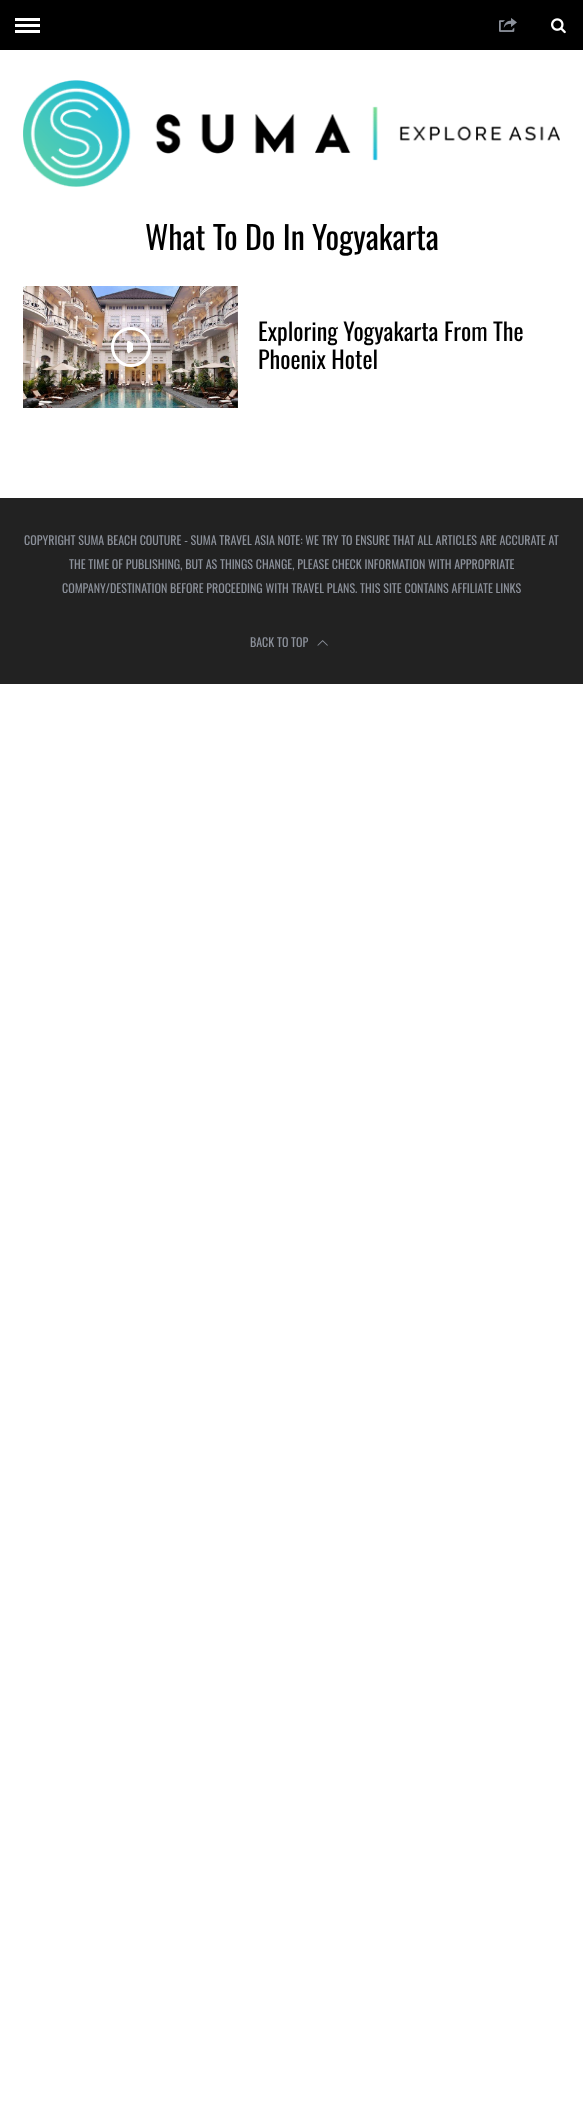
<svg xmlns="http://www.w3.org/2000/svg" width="583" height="2121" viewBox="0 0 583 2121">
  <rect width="100%" height="100%" fill="rgb(255,255,255)"/>
  <rect x="0" y="0" width="583" height="50" fill="rgb(0,0,0)"/>
  <rect x="15" y="24" width="25" height="3" fill="rgb(255,255,255)"/>
  <rect x="15" y="18" width="25" height="3" fill="rgb(255,255,255)"/>
  <rect x="15" y="30" width="25" height="3" fill="rgb(255,255,255)"/>
  <image x="499" y="18" width="18" height="14" href="pic1.png"/>
  <image x="551" y="18" width="15" height="16" href="pic2.png"/>
  <image x="23" y="80" width="537" height="107" href="pic3.png"/>
  <text x="145" y="250" font-family="Oswald" font-size="32" fill="rgb(0,0,0)">What To Do In Yogyakarta</text>
  <image x="23" y="286" width="215" height="122" href="pic4.png"/>
  <circle cx="131" cy="347" r="18.5" fill="none" stroke="rgb(255,255,255)" stroke-width="3"/>
  <path d="M127 344C127 342.5 127.5 341.5 128 340.5L133 343.5V350.5L128.5 353.5C126 352 127 346.5 127 344Z" fill="rgb(255,255,255)"/>
  <g font-family="Oswald" font-size="24" fill="rgb(0,0,0)">
    <text>
      <tspan x="258" y="341">Exploring Yogyakarta From The</tspan>
      <tspan x="258" y="369">Phoenix Hotel</tspan>
    </text>
  </g>
  <rect x="0" y="498" width="583" height="186" fill="rgb(34,34,34)"/>
  <g font-family="Oswald" font-size="12" fill="rgb(140,145,155)">
    <text x="24" y="545">COPYRIGHT SUMA BEACH COUTURE - SUMA TRAVEL ASIA NOTE: WE TRY TO ENSURE THAT ALL ARTICLES ARE ACCURATE AT</text>
    <text x="69" y="569">THE TIME OF PUBLISHING, BUT AS THINGS CHANGE, PLEASE CHECK INFORMATION WITH APPROPRIATE</text>
    <text x="62" y="593">COMPANY/DESTINATION BEFORE PROCEEDING WITH TRAVEL PLANS. THIS SITE CONTAINS AFFILIATE LINKS</text>
    <text x="250" y="647">BACK TO TOP</text>
  </g>
  <image x="317" y="640" width="11" height="6" href="pic5.png"/>
</svg>
